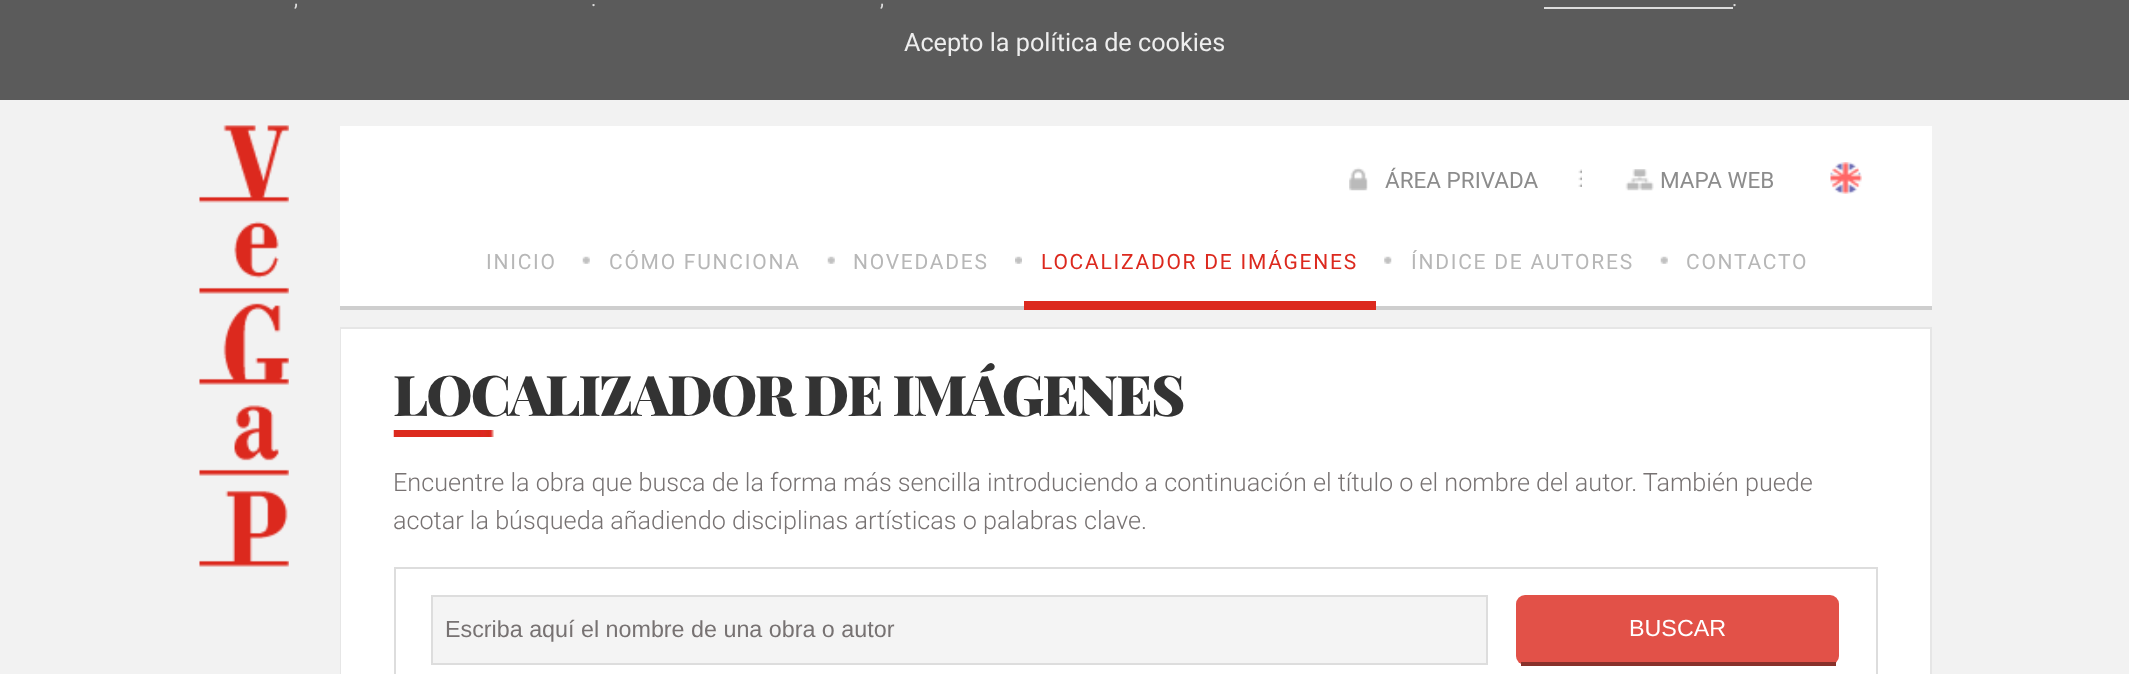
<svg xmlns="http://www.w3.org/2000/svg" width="2129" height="674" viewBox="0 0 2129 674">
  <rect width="100%" height="100%" fill="rgb(242,242,242)"/>
  <rect x="0" y="0" width="2129" height="100" fill="rgb(91,91,91)"/>
  <g font-family="Roboto" font-size="20" fill="rgb(221,221,221)">
    <text x="294" y="6">,</text>
    <text x="591" y="6">.</text>
    <text x="880" y="6">,</text>
    <text x="1732" y="6">.</text>
  </g>
  <rect x="1544" y="7" width="189" height="2" fill="rgb(221,221,221)"/>
  <text x="904" y="51" font-family="Roboto" font-size="25.2" fill="rgb(238,238,238)">Acepto la política de cookies</text>
  <rect x="340" y="126" width="1592" height="180" fill="rgb(255,255,255)"/>
  <image x="199" y="125" width="90" height="442" href="pic1.png"/>
  <image x="1578" y="169" width="4" height="18" href="pic2.png"/>
  <image x="1349" y="167" width="19" height="24" href="pic3.png"/>
  <text x="1385" y="188" font-family="Roboto" font-size="22.5" fill="rgb(140,140,140)">ÁREA PRIVADA</text>
  <image x="1625" y="169" width="29" height="22" href="pic4.png"/>
  <text x="1660" y="188" font-family="Roboto" font-size="22.5" fill="rgb(140,140,140)">MAPA WEB</text>
  <image x="1830" y="162" width="32" height="32" href="pic5.png"/>
  <rect x="340" y="306" width="1592" height="4" fill="rgb(206,206,206)"/>
  <text x="486" y="269" font-family="Roboto" font-size="21" letter-spacing="1.75" fill="rgb(183,183,183)">INICIO</text>
  <image x="582" y="256" width="8" height="8" href="pic6.png"/>
  <text x="609" y="269" font-family="Roboto" font-size="21" letter-spacing="1.75" fill="rgb(183,183,183)">CÓMO FUNCIONA</text>
  <image x="827" y="256" width="8" height="8" href="pic7.png"/>
  <text x="853" y="269" font-family="Roboto" font-size="21" letter-spacing="1.75" fill="rgb(183,183,183)">NOVEDADES</text>
  <rect x="1024" y="301" width="352" height="9" fill="rgb(220,41,30)"/>
  <image x="1015" y="256" width="7" height="8" href="pic8.png"/>
  <text x="1041" y="269" font-family="Roboto" font-size="21" letter-spacing="1.75" fill="rgb(220,41,30)">LOCALIZADOR DE IMÁGENES</text>
  <image x="1384" y="256" width="8" height="8" href="pic9.png"/>
  <text x="1411" y="269" font-family="Roboto" font-size="21" letter-spacing="1.75" fill="rgb(183,183,183)">ÍNDICE DE AUTORES</text>
  <image x="1660" y="256" width="8" height="8" href="pic6.png"/>
  <text x="1686" y="269" font-family="Roboto" font-size="21" letter-spacing="1.75" fill="rgb(183,183,183)">CONTACTO</text>
  <rect x="341" y="329" width="1589" height="345" fill="rgb(255,255,255)"/>
  <rect x="340" y="327" width="1592" height="2" fill="rgb(230,230,230)"/>
  <path d="M1932 327V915L1930 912V329Z" fill="rgb(230,230,230)"/>
  <path d="M340 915V327L341 329V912Z" fill="rgb(230,230,230)"/>
  <image x="393" y="430" width="101" height="7" href="pic10.png"/>
  <text x="393" y="416" font-family="Playfair Display" font-size="56" font-weight="900" letter-spacing="-1.75" fill="rgb(51,51,51)">LOCALIZADOR DE IMÁGENES</text>
  <g font-family="Roboto" font-size="25.2" font-weight="300" fill="rgb(119,114,114)">
    <text>
      <tspan x="393" y="491">Encuentre la obra que busca de la forma más sencilla introduciendo a continuación el título o el nombre del autor. También puede</tspan>
      <tspan x="393" y="529">acotar la búsqueda añadiendo disciplinas artísticas o palabras clave.</tspan>
    </text>
  </g>
  <rect x="394" y="567" width="1484" height="2" fill="rgb(221,221,221)"/>
  <rect x="1876" y="567" width="2" height="107" fill="rgb(221,221,221)"/>
  <rect x="394" y="567" width="2" height="107" fill="rgb(221,221,221)"/>
  <rect x="432" y="596" width="1055" height="68" fill="rgb(244,244,244)" stroke="rgb(221,221,221)" stroke-width="2"/>
  <text x="445" y="637" font-family="Liberation Sans" font-size="23.3" fill="rgb(119,114,114)">Escriba aquí el nombre de una obra o autor</text>
  <rect x="1516" y="595" width="323" height="70" rx="9" fill="rgb(226,81,72)"/>
  <rect x="1521" y="662" width="315" height="4" fill="rgb(136,49,43)"/>
  <text x="1629" y="636" font-family="Liberation Sans" font-size="23.3" fill="rgb(255,255,255)">BUSCAR</text>
</svg>
